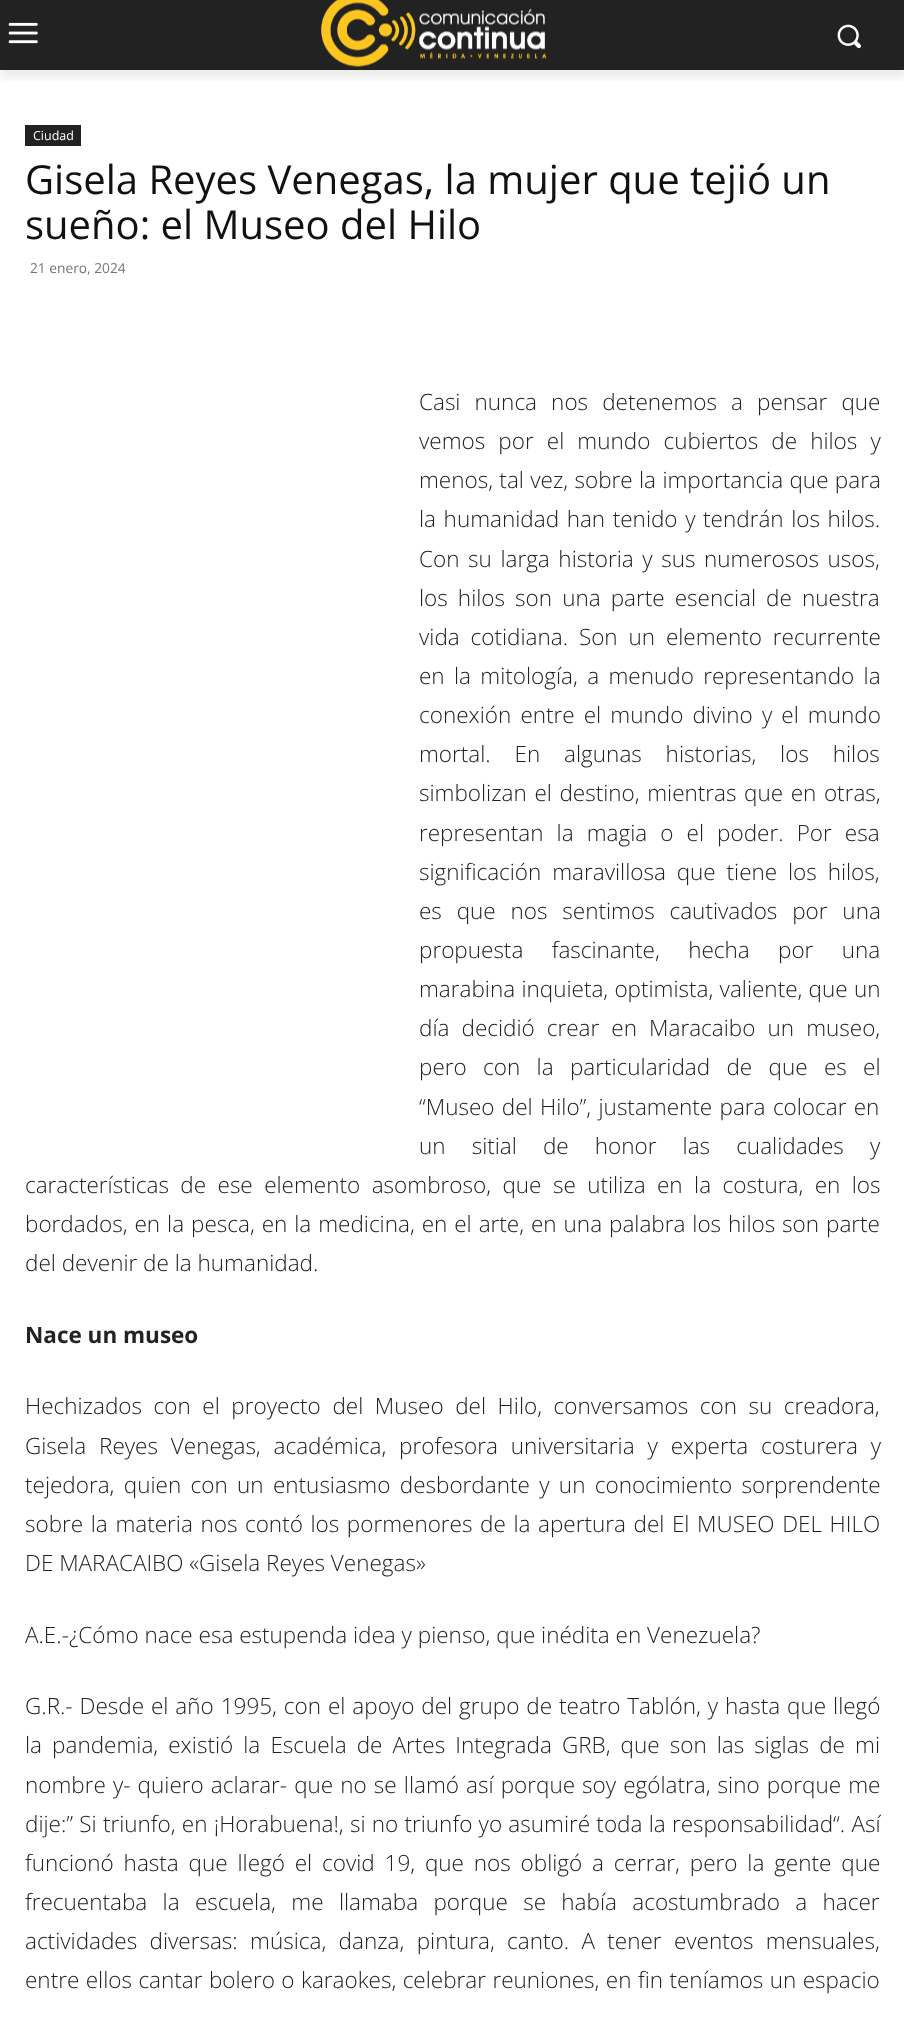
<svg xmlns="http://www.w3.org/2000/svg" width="904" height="2018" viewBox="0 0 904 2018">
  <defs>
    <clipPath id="clip1"><rect x="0" y="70" width="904" height="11"/></clipPath>
  </defs>
  <rect width="100%" height="100%" fill="rgb(255,255,255)"/>
  <rect x="0" y="0" width="904" height="70" fill="rgb(34,34,34)"/>
  <image x="8" y="22" width="30" height="22" href="pic1.png"/>
  <image x="321" y="0" width="226" height="67" href="pic2.png"/>
  <image x="837" y="24" width="24" height="25" href="pic3.png"/>
  <g clip-path="url(#clip1)">
    <rect x="0" y="8" width="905" height="70" fill="rgba(0,0,0,0.08)" filter="blur(5px)"/>
  </g>
  <rect x="25" y="125" width="56" height="21" fill="rgb(34,34,34)"/>
  <text x="33" y="140" font-family="Open Sans" font-size="12.5" fill="rgb(255,255,255)">Ciudad</text>
  <g font-family="Open Sans" font-size="40" fill="rgb(17,17,17)">
    <text>
      <tspan x="25" y="194">Gisela Reyes Venegas, la mujer que tejió un</tspan>
      <tspan x="25" y="239">sueño: el Museo del Hilo</tspan>
    </text>
  </g>
  <text x="30" y="273" font-family="Open Sans" font-size="13.75" fill="rgb(118,118,118)">21 enero, 2024</text>
  <g font-family="Open Sans" font-size="22.5" font-weight="300" fill="rgb(34,34,34)">
    <text>
      <tspan x="419" y="410" word-spacing="8.25">Casi nunca nos detenemos a pensar que</tspan>
      <tspan x="419" y="449" word-spacing="7.25">vemos por el mundo cubiertos de hilos y</tspan>
      <tspan x="419" y="488" word-spacing="0.5">menos, tal vez, sobre la importancia que para</tspan>
      <tspan x="419" y="527" word-spacing="1.75">la humanidad han tenido y tendrán los hilos.</tspan>
      <tspan x="419" y="567" word-spacing="2.75">Con su larga historia y sus numerosos usos,</tspan>
      <tspan x="419" y="606" word-spacing="4.25">los hilos son una parte esencial de nuestra</tspan>
      <tspan x="419" y="645" word-spacing="5">vida cotidiana. Son un elemento recurrente</tspan>
      <tspan x="419" y="684" word-spacing="3.5">en la mitología, a menudo representando la</tspan>
      <tspan x="419" y="723" word-spacing="3.25">conexión entre el mundo divino y el mundo</tspan>
      <tspan x="419" y="762" word-spacing="18">mortal. En algunas historias, los hilos</tspan>
      <tspan x="419" y="801" word-spacing="1.75">simbolizan el destino, mientras que en otras,</tspan>
      <tspan x="419" y="841" word-spacing="7.25">representan la magia o el poder. Por esa</tspan>
      <tspan x="419" y="880" word-spacing="5">significación maravillosa que tiene los hilos,</tspan>
      <tspan x="419" y="919" word-spacing="9">es que nos sentimos cautivados por una</tspan>
      <tspan x="419" y="958" word-spacing="22.5">propuesta fascinante, hecha por una</tspan>
      <tspan x="419" y="997" word-spacing="0.4">marabina inquieta, optimista, valiente, que un</tspan>
      <tspan x="419" y="1036" word-spacing="6.25">día decidió crear en Maracaibo un museo,</tspan>
      <tspan x="419" y="1075" word-spacing="10.5">pero con la particularidad de que es el</tspan>
      <tspan x="419" y="1115" word-spacing="1.5">“Museo del Hilo”, justamente para colocar en</tspan>
      <tspan x="419" y="1154" word-spacing="20.25">un sitial de honor las cualidades y</tspan>
    </text>
    <text>
      <tspan x="25" y="1193" word-spacing="5.6">características de ese elemento asombroso, que se utiliza en la costura, en los</tspan>
      <tspan x="25" y="1232" word-spacing="1.1">bordados, en la pesca, en la medicina, en el arte, en una palabra los hilos son parte</tspan>
      <tspan x="25" y="1271">del devenir de la humanidad.</tspan>
    </text>
  </g>
  <text x="25" y="1343" font-family="Open Sans" font-size="22.5" font-weight="bold" fill="rgb(34,34,34)">Nace un museo</text>
  <g font-family="Open Sans" font-size="22.5" font-weight="300" fill="rgb(34,34,34)">
    <text>
      <tspan x="25" y="1414" word-spacing="5.75">Hechizados con el proyecto del Museo del Hilo, conversamos con su creadora,</tspan>
      <tspan x="25" y="1454" word-spacing="7">Gisela Reyes Venegas, académica, profesora universitaria y experta costurera y</tspan>
      <tspan x="25" y="1493" word-spacing="3.5">tejedora, quien con un entusiasmo desbordante y un conocimiento sorprendente</tspan>
      <tspan x="25" y="1532" word-spacing="1.75">sobre la materia nos contó los pormenores de la apertura del El MUSEO DEL HILO</tspan>
      <tspan x="25" y="1571">DE MARACAIBO «Gisela Reyes Venegas»</tspan>
    </text>
    <text x="25" y="1643">A.E.-¿Cómo nace esa estupenda idea y pienso, que inédita en Venezuela?</text>
    <text>
      <tspan x="25" y="1714" word-spacing="1.1">G.R.- Desde el año 1995, con el apoyo del grupo de teatro Tablón, y hasta que llegó</tspan>
      <tspan x="25" y="1753" word-spacing="4.25">la pandemia, existió la Escuela de Artes Integrada GRB, que son las siglas de mi</tspan>
      <tspan x="25" y="1793" word-spacing="1.25">nombre y- quiero aclarar- que no se llamó así porque soy ególatra, sino porque me</tspan>
      <tspan x="25" y="1832" word-spacing="0.4">dije:” Si triunfo, en ¡Horabuena!, si no triunfo yo asumiré toda la responsabilidad“. Así</tspan>
      <tspan x="25" y="1871" word-spacing="4">funcionó hasta que llegó el covid 19, que nos obligó a cerrar, pero la gente que</tspan>
      <tspan x="25" y="1910" word-spacing="9.5">frecuentaba la escuela, me llamaba porque se había acostumbrado a hacer</tspan>
      <tspan x="25" y="1949" word-spacing="6.5">actividades diversas: música, danza, pintura, canto. A tener eventos mensuales,</tspan>
      <tspan x="25" y="1988" word-spacing="0.6">entre ellos cantar bolero o karaokes, celebrar reuniones, en fin teníamos un espacio</tspan>
    </text>
  </g>
</svg>
